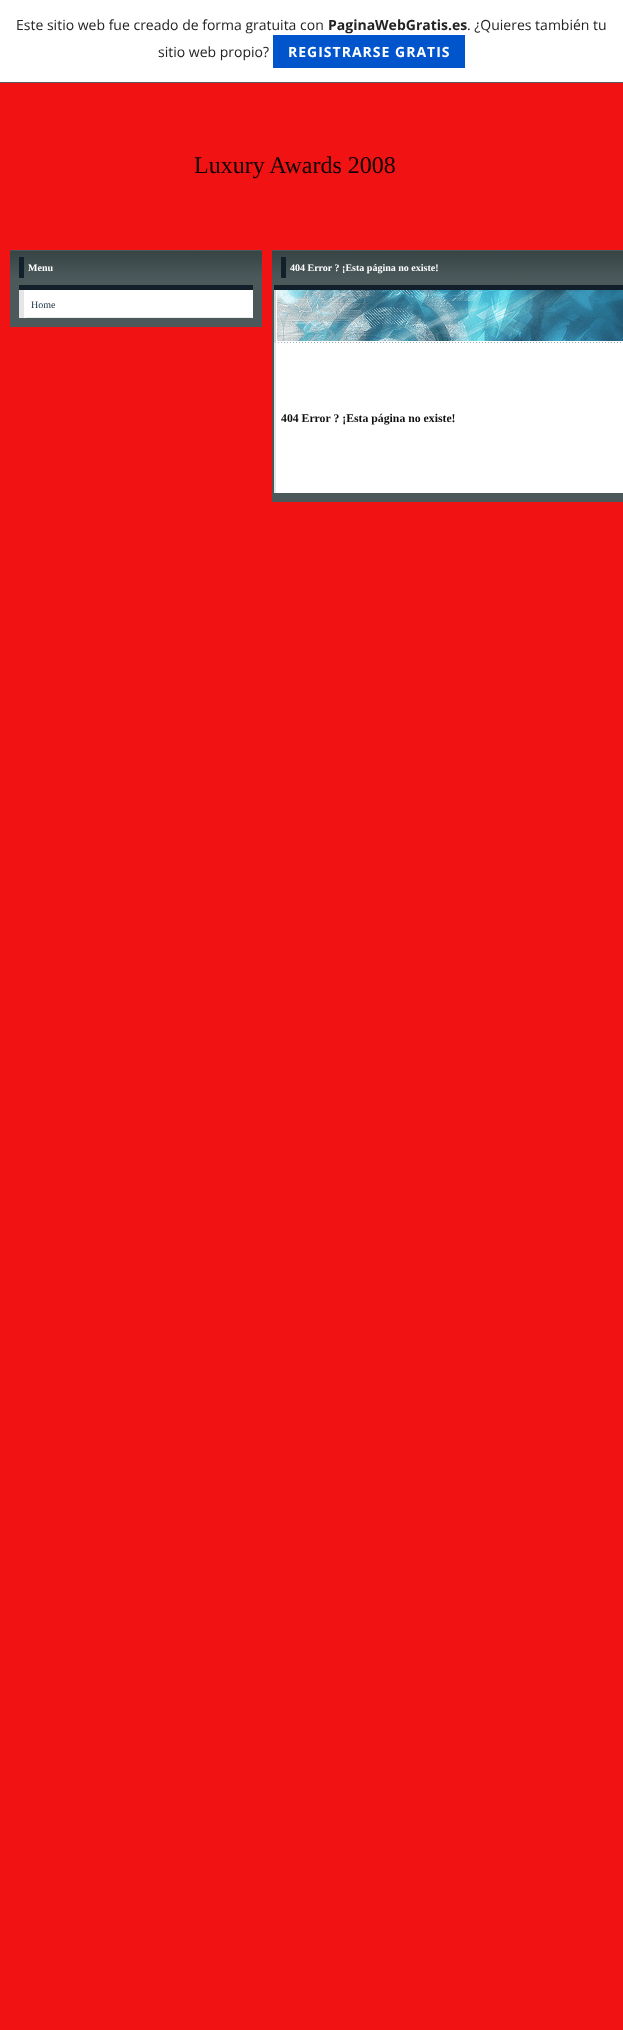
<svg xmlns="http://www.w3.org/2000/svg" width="623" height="2030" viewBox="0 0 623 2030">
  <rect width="100%" height="100%" fill="rgb(241,19,19)"/>
  <rect x="0" y="0" width="623" height="82" fill="rgb(255,255,255)"/>
  <rect x="0" y="82" width="623" height="1" fill="rgb(90,90,90)"/>
  <text x="16" y="30" font-family="Open Sans" font-size="14" fill="rgb(35,35,35)">Este sitio web fue creado de forma gratuita con</text>
  <text x="328" y="30" font-family="Open Sans" font-size="14" font-weight="bold" fill="rgb(35,35,35)">PaginaWebGratis.es</text>
  <g font-family="Open Sans" font-size="14" fill="rgb(35,35,35)">
    <text x="467" y="30">. ¿Quieres también tu</text>
    <text x="158" y="57">sitio web propio?</text>
  </g>
  <rect x="273" y="35" width="192" height="33" fill="rgb(0,85,204)"/>
  <text x="288" y="57" font-family="Open Sans" font-size="14" font-weight="bold" letter-spacing="1" fill="rgb(255,255,255)">REGISTRARSE GRATIS</text>
  <text x="194" y="173" font-family="Liberation Serif" font-size="24" fill="rgb(14,1,1)">Luxury Awards 2008</text>
  <image x="10" y="250" width="252" height="35" href="pic1.png"/>
  <rect x="19" y="257" width="5" height="21" fill="rgb(17,32,42)"/>
  <text x="28" y="271" font-family="Liberation Serif" font-size="10" font-weight="bold" fill="rgb(255,255,255)">Menu</text>
  <rect x="10" y="285" width="252" height="42" fill="rgb(75,89,91)"/>
  <rect x="19" y="285" width="234" height="5" fill="rgb(17,32,42)"/>
  <image x="19" y="290" width="234" height="28" href="pic2.png"/>
  <text x="31" y="308" font-family="Liberation Serif" font-size="10" fill="rgb(23,47,71)">Home</text>
  <image x="272" y="250" width="351" height="35" href="pic3.png"/>
  <rect x="281" y="257" width="5" height="21" fill="rgb(17,32,42)"/>
  <text x="290" y="271" font-family="Liberation Serif" font-size="10" font-weight="bold" fill="rgb(255,255,255)">404 Error ? ¡Esta página no existe!</text>
  <rect x="272" y="285" width="351" height="217" fill="rgb(75,89,91)"/>
  <rect x="274" y="285" width="349" height="5" fill="rgb(17,32,42)"/>
  <rect x="274" y="290" width="2" height="53" fill="rgb(206,206,206)"/>
  <image x="276" y="290" width="347" height="53" href="pic4.png"/>
  <rect x="274" y="343" width="2" height="150" fill="rgb(229,229,229)"/>
  <rect x="276" y="343" width="347" height="150" fill="rgb(255,255,255)"/>
  <text x="281" y="422" font-family="Liberation Serif" font-size="11.75" font-weight="bold" fill="rgb(15,15,15)">404 Error ? ¡Esta página no existe!</text>
</svg>
